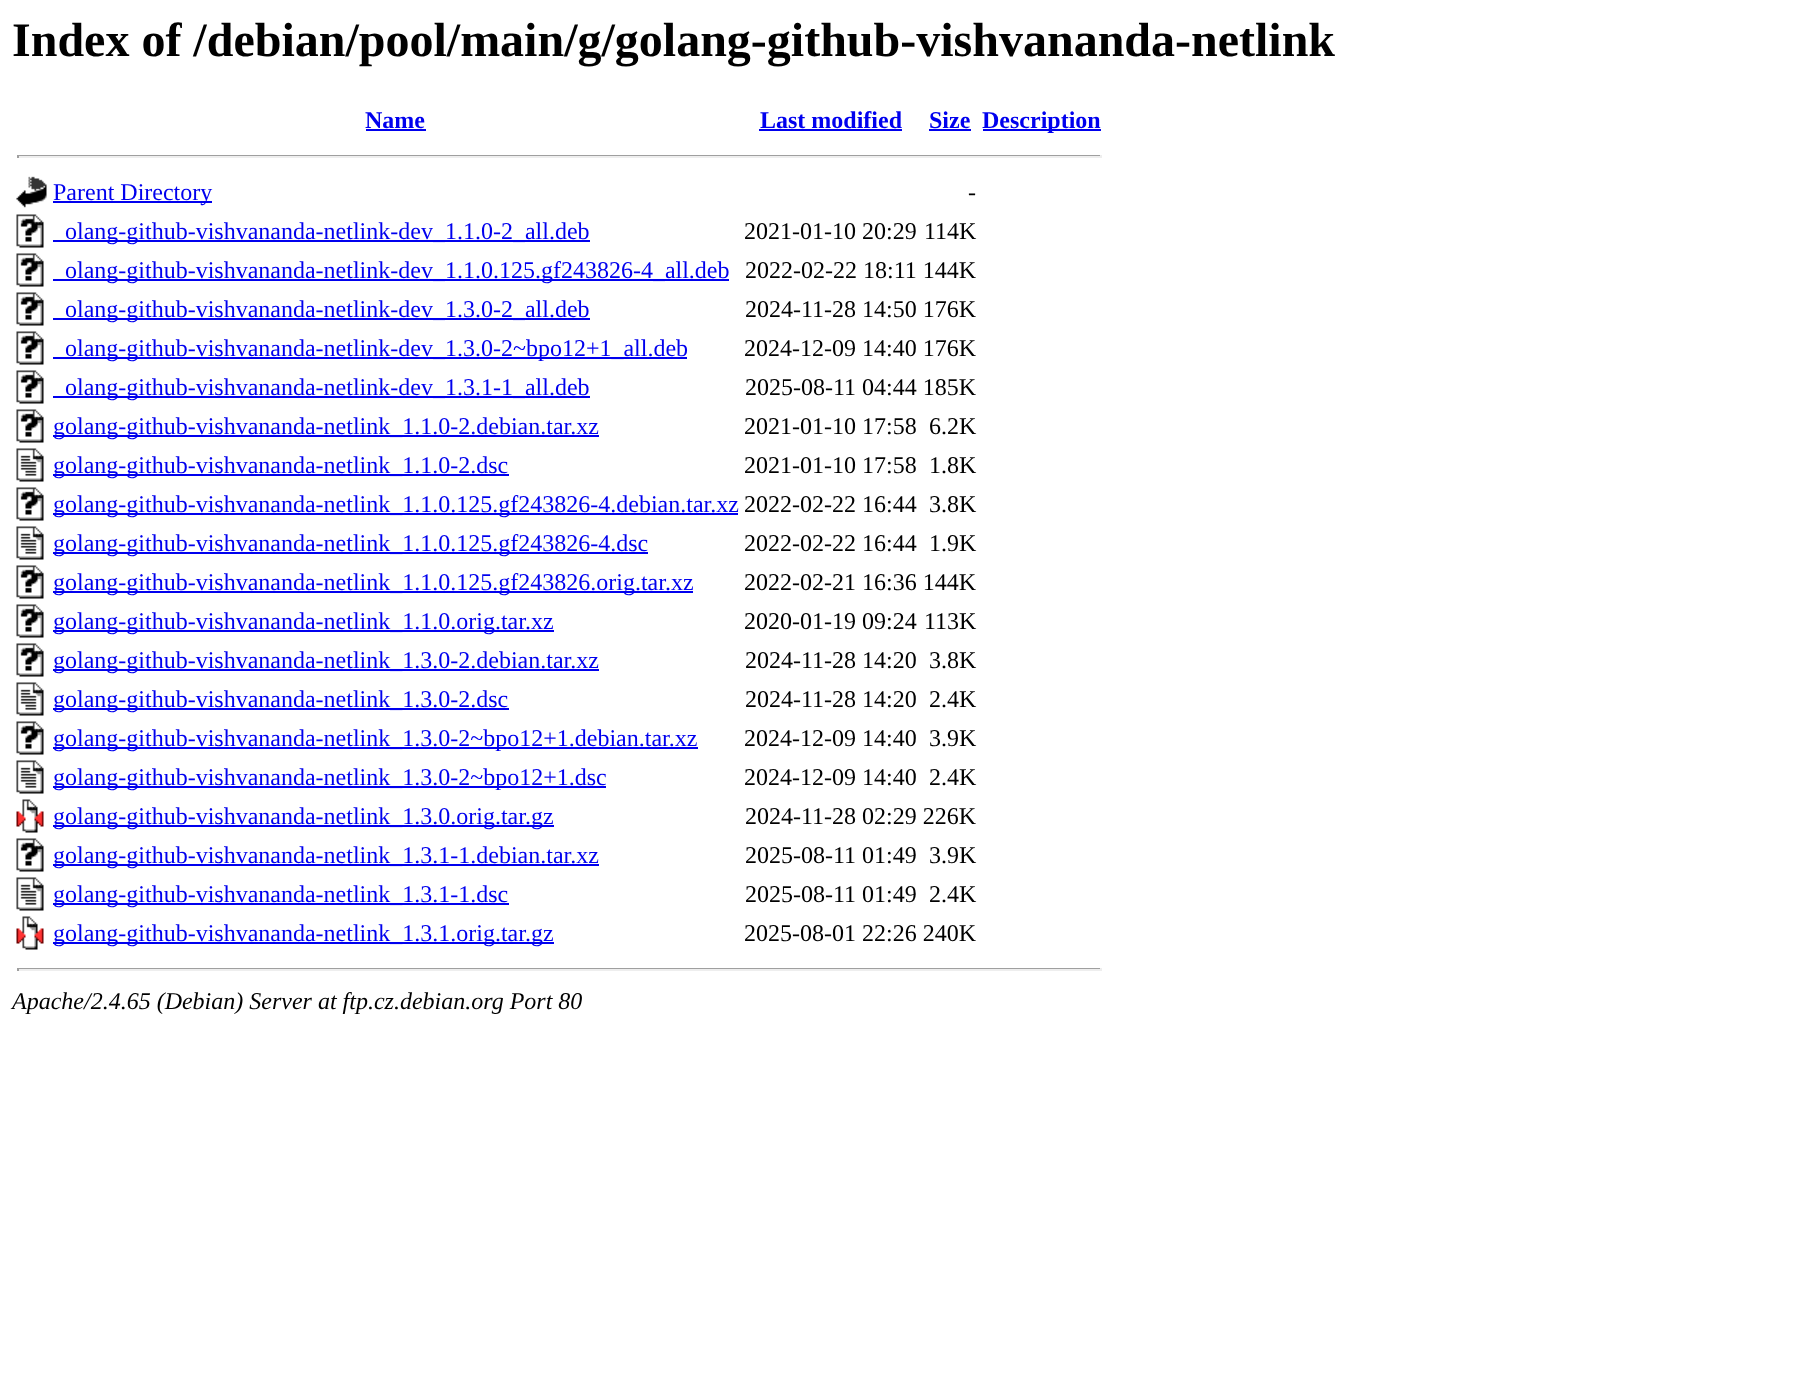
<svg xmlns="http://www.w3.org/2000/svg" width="1820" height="1399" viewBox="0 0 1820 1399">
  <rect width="100%" height="100%" fill="rgb(255,255,255)"/>
  <text x="12" y="56" font-family="Liberation Serif" font-size="48" font-weight="bold" fill="rgb(0,0,0)">Index of /debian/pool/main/g/golang-github-vishvananda-netlink</text>
  <text x="365" y="128" font-family="Liberation Serif" font-size="24" font-weight="bold" fill="rgb(0,0,238)">Name</text>
  <rect x="366" y="129" width="60" height="2" fill="rgb(0,0,238)"/>
  <text x="760" y="128" font-family="Liberation Serif" font-size="24" font-weight="bold" fill="rgb(0,0,238)">Last modified</text>
  <rect x="759" y="129" width="143" height="2" fill="rgb(0,0,238)"/>
  <text x="929" y="128" font-family="Liberation Serif" font-size="24" font-weight="bold" fill="rgb(0,0,238)">Size</text>
  <rect x="929" y="129" width="42" height="2" fill="rgb(0,0,238)"/>
  <rect x="983" y="129" width="118" height="2" fill="rgb(0,0,238)"/>
  <text x="982" y="128" font-family="Liberation Serif" font-size="24" font-weight="bold" fill="rgb(0,0,238)">Description</text>
  <rect x="17" y="155" width="1084" height="1" fill="rgb(159,159,159)"/>
  <rect x="1100" y="155" width="2" height="3" fill="rgb(238,238,238)"/>
  <rect x="17" y="156" width="1084" height="2" fill="rgb(238,238,238)"/>
  <rect x="17" y="155" width="2" height="3" fill="rgb(159,159,159)"/>
  <image x="16" y="176" width="31" height="32" href="pic1.png"/>
  <rect x="53" y="201" width="159" height="2" fill="rgb(0,0,238)"/>
  <text x="53" y="200" font-family="Liberation Serif" font-size="24" fill="rgb(0,0,238)">Parent Directory</text>
  <text x="968" y="200" font-family="Liberation Serif" font-size="24" fill="rgb(0,0,0)">-</text>
  <image x="16" y="214" width="28" height="34" href="pic2.png"/>
  <rect x="53" y="240" width="537" height="2" fill="rgb(0,0,238)"/>
  <text x="65" y="239" font-family="Liberation Serif" font-size="24" fill="rgb(0,0,238)">olang-github-vishvananda-netlink-dev_1.1.0-2_all.deb</text>
  <g font-family="Liberation Serif" font-size="24" fill="rgb(0,0,0)">
    <text x="744" y="239">2021-01-10 20:29</text>
    <text x="924" y="239">114K</text>
  </g>
  <image x="16" y="253" width="28" height="34" href="pic2.png"/>
  <rect x="53" y="279" width="676" height="2" fill="rgb(0,0,238)"/>
  <text x="65" y="278" font-family="Liberation Serif" font-size="24" fill="rgb(0,0,238)">olang-github-vishvananda-netlink-dev_1.1.0.125.gf243826-4_all.deb</text>
  <text x="745" y="278" font-family="Liberation Serif" font-size="24" fill="rgb(0,0,0)">2022-02-22 18:11 144K</text>
  <image x="16" y="292" width="28" height="34" href="pic2.png"/>
  <rect x="53" y="318" width="537" height="2" fill="rgb(0,0,238)"/>
  <text x="65" y="317" font-family="Liberation Serif" font-size="24" fill="rgb(0,0,238)">olang-github-vishvananda-netlink-dev_1.3.0-2_all.deb</text>
  <text x="745" y="317" font-family="Liberation Serif" font-size="24" fill="rgb(0,0,0)">2024-11-28 14:50 176K</text>
  <image x="16" y="331" width="28" height="34" href="pic2.png"/>
  <rect x="53" y="357" width="634" height="2" fill="rgb(0,0,238)"/>
  <text x="65" y="356" font-family="Liberation Serif" font-size="24" fill="rgb(0,0,238)">olang-github-vishvananda-netlink-dev_1.3.0-2~bpo12+1_all.deb</text>
  <text x="744" y="356" font-family="Liberation Serif" font-size="24" fill="rgb(0,0,0)">2024-12-09 14:40 176K</text>
  <image x="16" y="370" width="28" height="34" href="pic2.png"/>
  <rect x="53" y="396" width="537" height="2" fill="rgb(0,0,238)"/>
  <text x="65" y="395" font-family="Liberation Serif" font-size="24" fill="rgb(0,0,238)">olang-github-vishvananda-netlink-dev_1.3.1-1_all.deb</text>
  <text x="745" y="395" font-family="Liberation Serif" font-size="24" fill="rgb(0,0,0)">2025-08-11 04:44 185K</text>
  <image x="16" y="409" width="28" height="34" href="pic2.png"/>
  <rect x="53" y="435" width="546" height="2" fill="rgb(0,0,238)"/>
  <text x="53" y="434" font-family="Liberation Serif" font-size="24" fill="rgb(0,0,238)">golang-github-vishvananda-netlink_1.1.0-2.debian.tar.xz</text>
  <g font-family="Liberation Serif" font-size="24" fill="rgb(0,0,0)">
    <text x="744" y="434">2021-01-10 17:58</text>
    <text x="929" y="434">6.2K</text>
  </g>
  <image x="16" y="448" width="28" height="34" href="pic3.png"/>
  <rect x="53" y="474" width="456" height="2" fill="rgb(0,0,238)"/>
  <text x="53" y="473" font-family="Liberation Serif" font-size="24" fill="rgb(0,0,238)">golang-github-vishvananda-netlink_1.1.0-2.dsc</text>
  <g font-family="Liberation Serif" font-size="24" fill="rgb(0,0,0)">
    <text x="744" y="473">2021-01-10 17:58</text>
    <text x="929" y="473">1.8K</text>
  </g>
  <image x="16" y="487" width="28" height="34" href="pic2.png"/>
  <rect x="53" y="513" width="685" height="2" fill="rgb(0,0,238)"/>
  <text x="53" y="512" font-family="Liberation Serif" font-size="24" fill="rgb(0,0,238)">golang-github-vishvananda-netlink_1.1.0.125.gf243826-4.debian.tar.xz</text>
  <g font-family="Liberation Serif" font-size="24" fill="rgb(0,0,0)">
    <text x="744" y="512">2022-02-22 16:44</text>
    <text x="929" y="512">3.8K</text>
  </g>
  <image x="16" y="526" width="28" height="34" href="pic3.png"/>
  <rect x="53" y="552" width="595" height="2" fill="rgb(0,0,238)"/>
  <text x="53" y="551" font-family="Liberation Serif" font-size="24" fill="rgb(0,0,238)">golang-github-vishvananda-netlink_1.1.0.125.gf243826-4.dsc</text>
  <g font-family="Liberation Serif" font-size="24" fill="rgb(0,0,0)">
    <text x="744" y="551">2022-02-22 16:44</text>
    <text x="929" y="551">1.9K</text>
  </g>
  <image x="16" y="565" width="28" height="34" href="pic2.png"/>
  <rect x="53" y="591" width="640" height="2" fill="rgb(0,0,238)"/>
  <text x="53" y="590" font-family="Liberation Serif" font-size="24" fill="rgb(0,0,238)">golang-github-vishvananda-netlink_1.1.0.125.gf243826.orig.tar.xz</text>
  <text x="744" y="590" font-family="Liberation Serif" font-size="24" fill="rgb(0,0,0)">2022-02-21 16:36 144K</text>
  <image x="16" y="604" width="28" height="34" href="pic2.png"/>
  <rect x="53" y="630" width="501" height="2" fill="rgb(0,0,238)"/>
  <text x="53" y="629" font-family="Liberation Serif" font-size="24" fill="rgb(0,0,238)">golang-github-vishvananda-netlink_1.1.0.orig.tar.xz</text>
  <g font-family="Liberation Serif" font-size="24" fill="rgb(0,0,0)">
    <text x="744" y="629">2020-01-19 09:24</text>
    <text x="924" y="629">113K</text>
  </g>
  <image x="16" y="643" width="28" height="34" href="pic2.png"/>
  <rect x="53" y="669" width="546" height="2" fill="rgb(0,0,238)"/>
  <text x="53" y="668" font-family="Liberation Serif" font-size="24" fill="rgb(0,0,238)">golang-github-vishvananda-netlink_1.3.0-2.debian.tar.xz</text>
  <g font-family="Liberation Serif" font-size="24" fill="rgb(0,0,0)">
    <text x="745" y="668">2024-11-28 14:20</text>
    <text x="929" y="668">3.8K</text>
  </g>
  <image x="16" y="682" width="28" height="34" href="pic3.png"/>
  <rect x="53" y="708" width="456" height="2" fill="rgb(0,0,238)"/>
  <text x="53" y="707" font-family="Liberation Serif" font-size="24" fill="rgb(0,0,238)">golang-github-vishvananda-netlink_1.3.0-2.dsc</text>
  <g font-family="Liberation Serif" font-size="24" fill="rgb(0,0,0)">
    <text x="745" y="707">2024-11-28 14:20</text>
    <text x="929" y="707">2.4K</text>
  </g>
  <image x="16" y="721" width="28" height="34" href="pic2.png"/>
  <rect x="53" y="747" width="645" height="2" fill="rgb(0,0,238)"/>
  <text x="53" y="746" font-family="Liberation Serif" font-size="24" fill="rgb(0,0,238)">golang-github-vishvananda-netlink_1.3.0-2~bpo12+1.debian.tar.xz</text>
  <g font-family="Liberation Serif" font-size="24" fill="rgb(0,0,0)">
    <text x="744" y="746">2024-12-09 14:40</text>
    <text x="929" y="746">3.9K</text>
  </g>
  <image x="16" y="760" width="28" height="34" href="pic3.png"/>
  <rect x="53" y="786" width="553" height="2" fill="rgb(0,0,238)"/>
  <text x="53" y="785" font-family="Liberation Serif" font-size="24" fill="rgb(0,0,238)">golang-github-vishvananda-netlink_1.3.0-2~bpo12+1.dsc</text>
  <g font-family="Liberation Serif" font-size="24" fill="rgb(0,0,0)">
    <text x="744" y="785">2024-12-09 14:40</text>
    <text x="929" y="785">2.4K</text>
  </g>
  <image x="16" y="799" width="28" height="34" href="pic4.png"/>
  <rect x="53" y="825" width="501" height="2" fill="rgb(0,0,238)"/>
  <text x="53" y="824" font-family="Liberation Serif" font-size="24" fill="rgb(0,0,238)">golang-github-vishvananda-netlink_1.3.0.orig.tar.gz</text>
  <text x="745" y="824" font-family="Liberation Serif" font-size="24" fill="rgb(0,0,0)">2024-11-28 02:29 226K</text>
  <image x="16" y="838" width="28" height="34" href="pic2.png"/>
  <rect x="53" y="864" width="546" height="2" fill="rgb(0,0,238)"/>
  <text x="53" y="863" font-family="Liberation Serif" font-size="24" fill="rgb(0,0,238)">golang-github-vishvananda-netlink_1.3.1-1.debian.tar.xz</text>
  <g font-family="Liberation Serif" font-size="24" fill="rgb(0,0,0)">
    <text x="745" y="863">2025-08-11 01:49</text>
    <text x="929" y="863">3.9K</text>
  </g>
  <image x="16" y="877" width="28" height="34" href="pic3.png"/>
  <rect x="53" y="903" width="456" height="2" fill="rgb(0,0,238)"/>
  <text x="53" y="902" font-family="Liberation Serif" font-size="24" fill="rgb(0,0,238)">golang-github-vishvananda-netlink_1.3.1-1.dsc</text>
  <g font-family="Liberation Serif" font-size="24" fill="rgb(0,0,0)">
    <text x="745" y="902">2025-08-11 01:49</text>
    <text x="929" y="902">2.4K</text>
  </g>
  <image x="16" y="916" width="28" height="34" href="pic4.png"/>
  <rect x="53" y="942" width="501" height="2" fill="rgb(0,0,238)"/>
  <text x="53" y="941" font-family="Liberation Serif" font-size="24" fill="rgb(0,0,238)">golang-github-vishvananda-netlink_1.3.1.orig.tar.gz</text>
  <text x="744" y="941" font-family="Liberation Serif" font-size="24" fill="rgb(0,0,0)">2025-08-01 22:26 240K</text>
  <rect x="17" y="968" width="1084" height="1" fill="rgb(159,159,159)"/>
  <rect x="1100" y="968" width="2" height="3" fill="rgb(238,238,238)"/>
  <rect x="17" y="969" width="1084" height="2" fill="rgb(238,238,238)"/>
  <rect x="17" y="968" width="2" height="3" fill="rgb(159,159,159)"/>
  <text x="12" y="1009" font-family="Liberation Serif" font-size="24" font-style="italic" fill="rgb(0,0,0)">Apache/2.4.65 (Debian) Server at ftp.cz.debian.org Port 80</text>
</svg>
